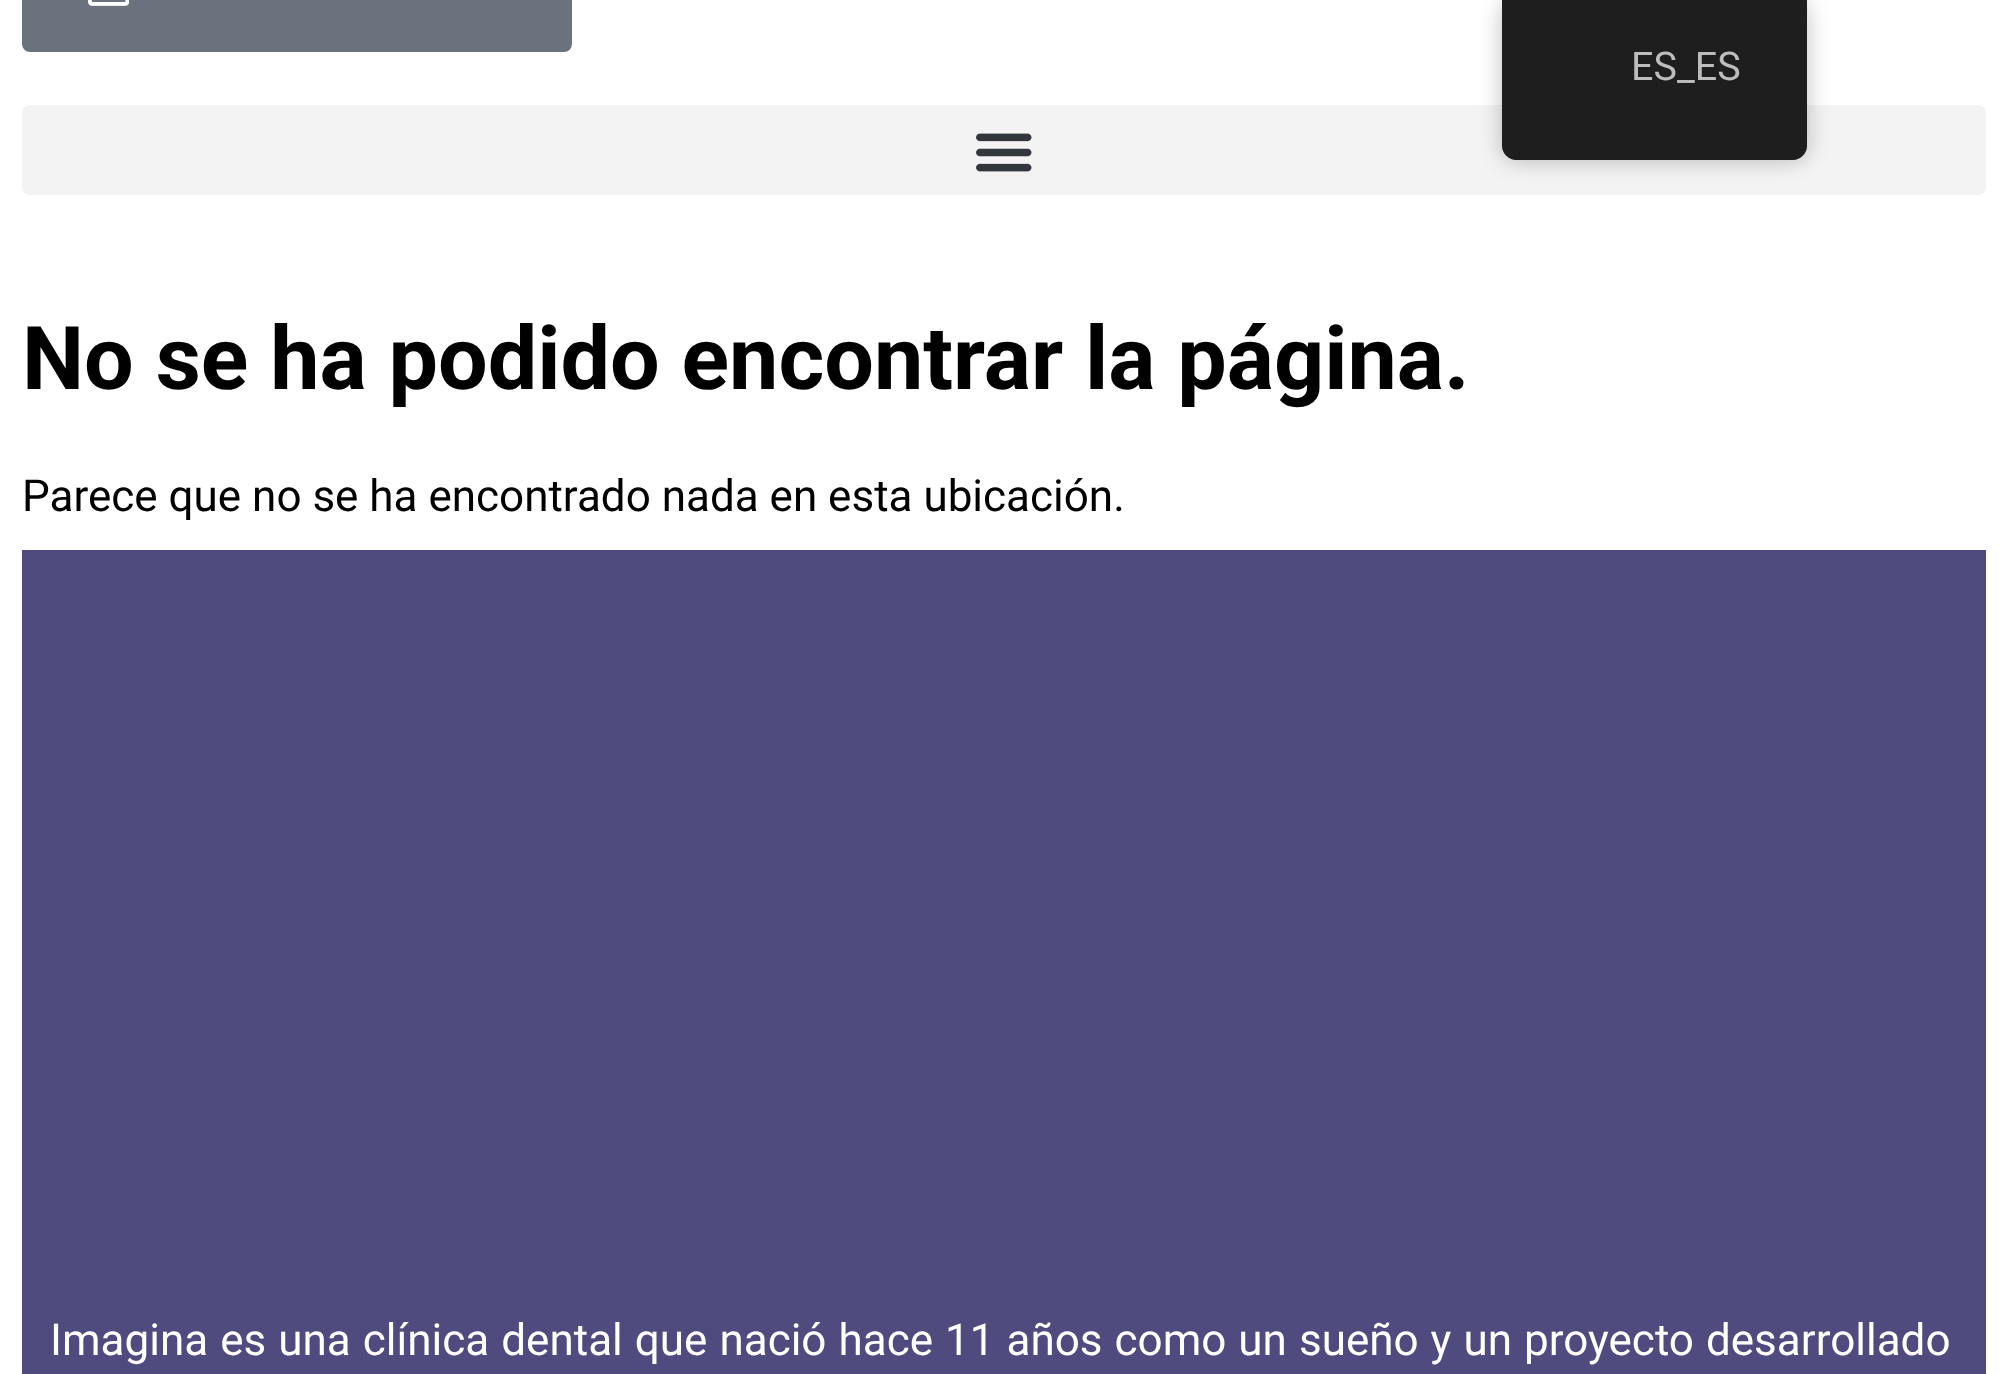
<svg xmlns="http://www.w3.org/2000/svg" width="2007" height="1374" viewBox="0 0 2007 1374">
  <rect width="100%" height="100%" fill="rgb(255,255,255)"/>
  <rect x="22" y="105" width="1964" height="90" rx="8" fill="rgb(243,243,243)"/>
  <rect x="1502" y="0" width="305" height="160" rx="14" fill="rgba(0,0,0,0.25)" filter="blur(11px)"/>
  <path d="M1502 0H1807V146C1807 153.5 1800.5 160 1793 160H1516C1508.5 160 1502 153.5 1502 146Z" fill="rgb(30,30,30)"/>
  <text x="1631" y="80" font-family="Roboto" font-size="39.5" fill="rgb(189,189,189)">ES_ES</text>
  <rect x="22" y="-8" width="550" height="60" rx="8" fill="rgb(105,114,125)"/>
  <image x="88" y="0" width="41" height="6" href="pic1.png"/>
  <image x="976" y="133" width="56" height="39" href="pic2.png"/>
  <text x="22" y="389" font-family="Roboto" font-size="88" font-weight="bold" fill="rgb(0,0,0)">No se ha podido encontrar la página.</text>
  <text x="22" y="511" font-family="Roboto" font-size="44" fill="rgb(0,0,0)">Parece que no se ha encontrado nada en esta ubicación.</text>
  <rect x="22" y="550" width="1964" height="824" fill="rgb(80,75,127)"/>
  <text x="50" y="1355" word-spacing="1.1" font-family="Roboto" font-size="44" fill="rgb(255,255,255)">Imagina es una clínica dental que nació hace 11 años como un sueño y un proyecto desarrollado</text>
</svg>
